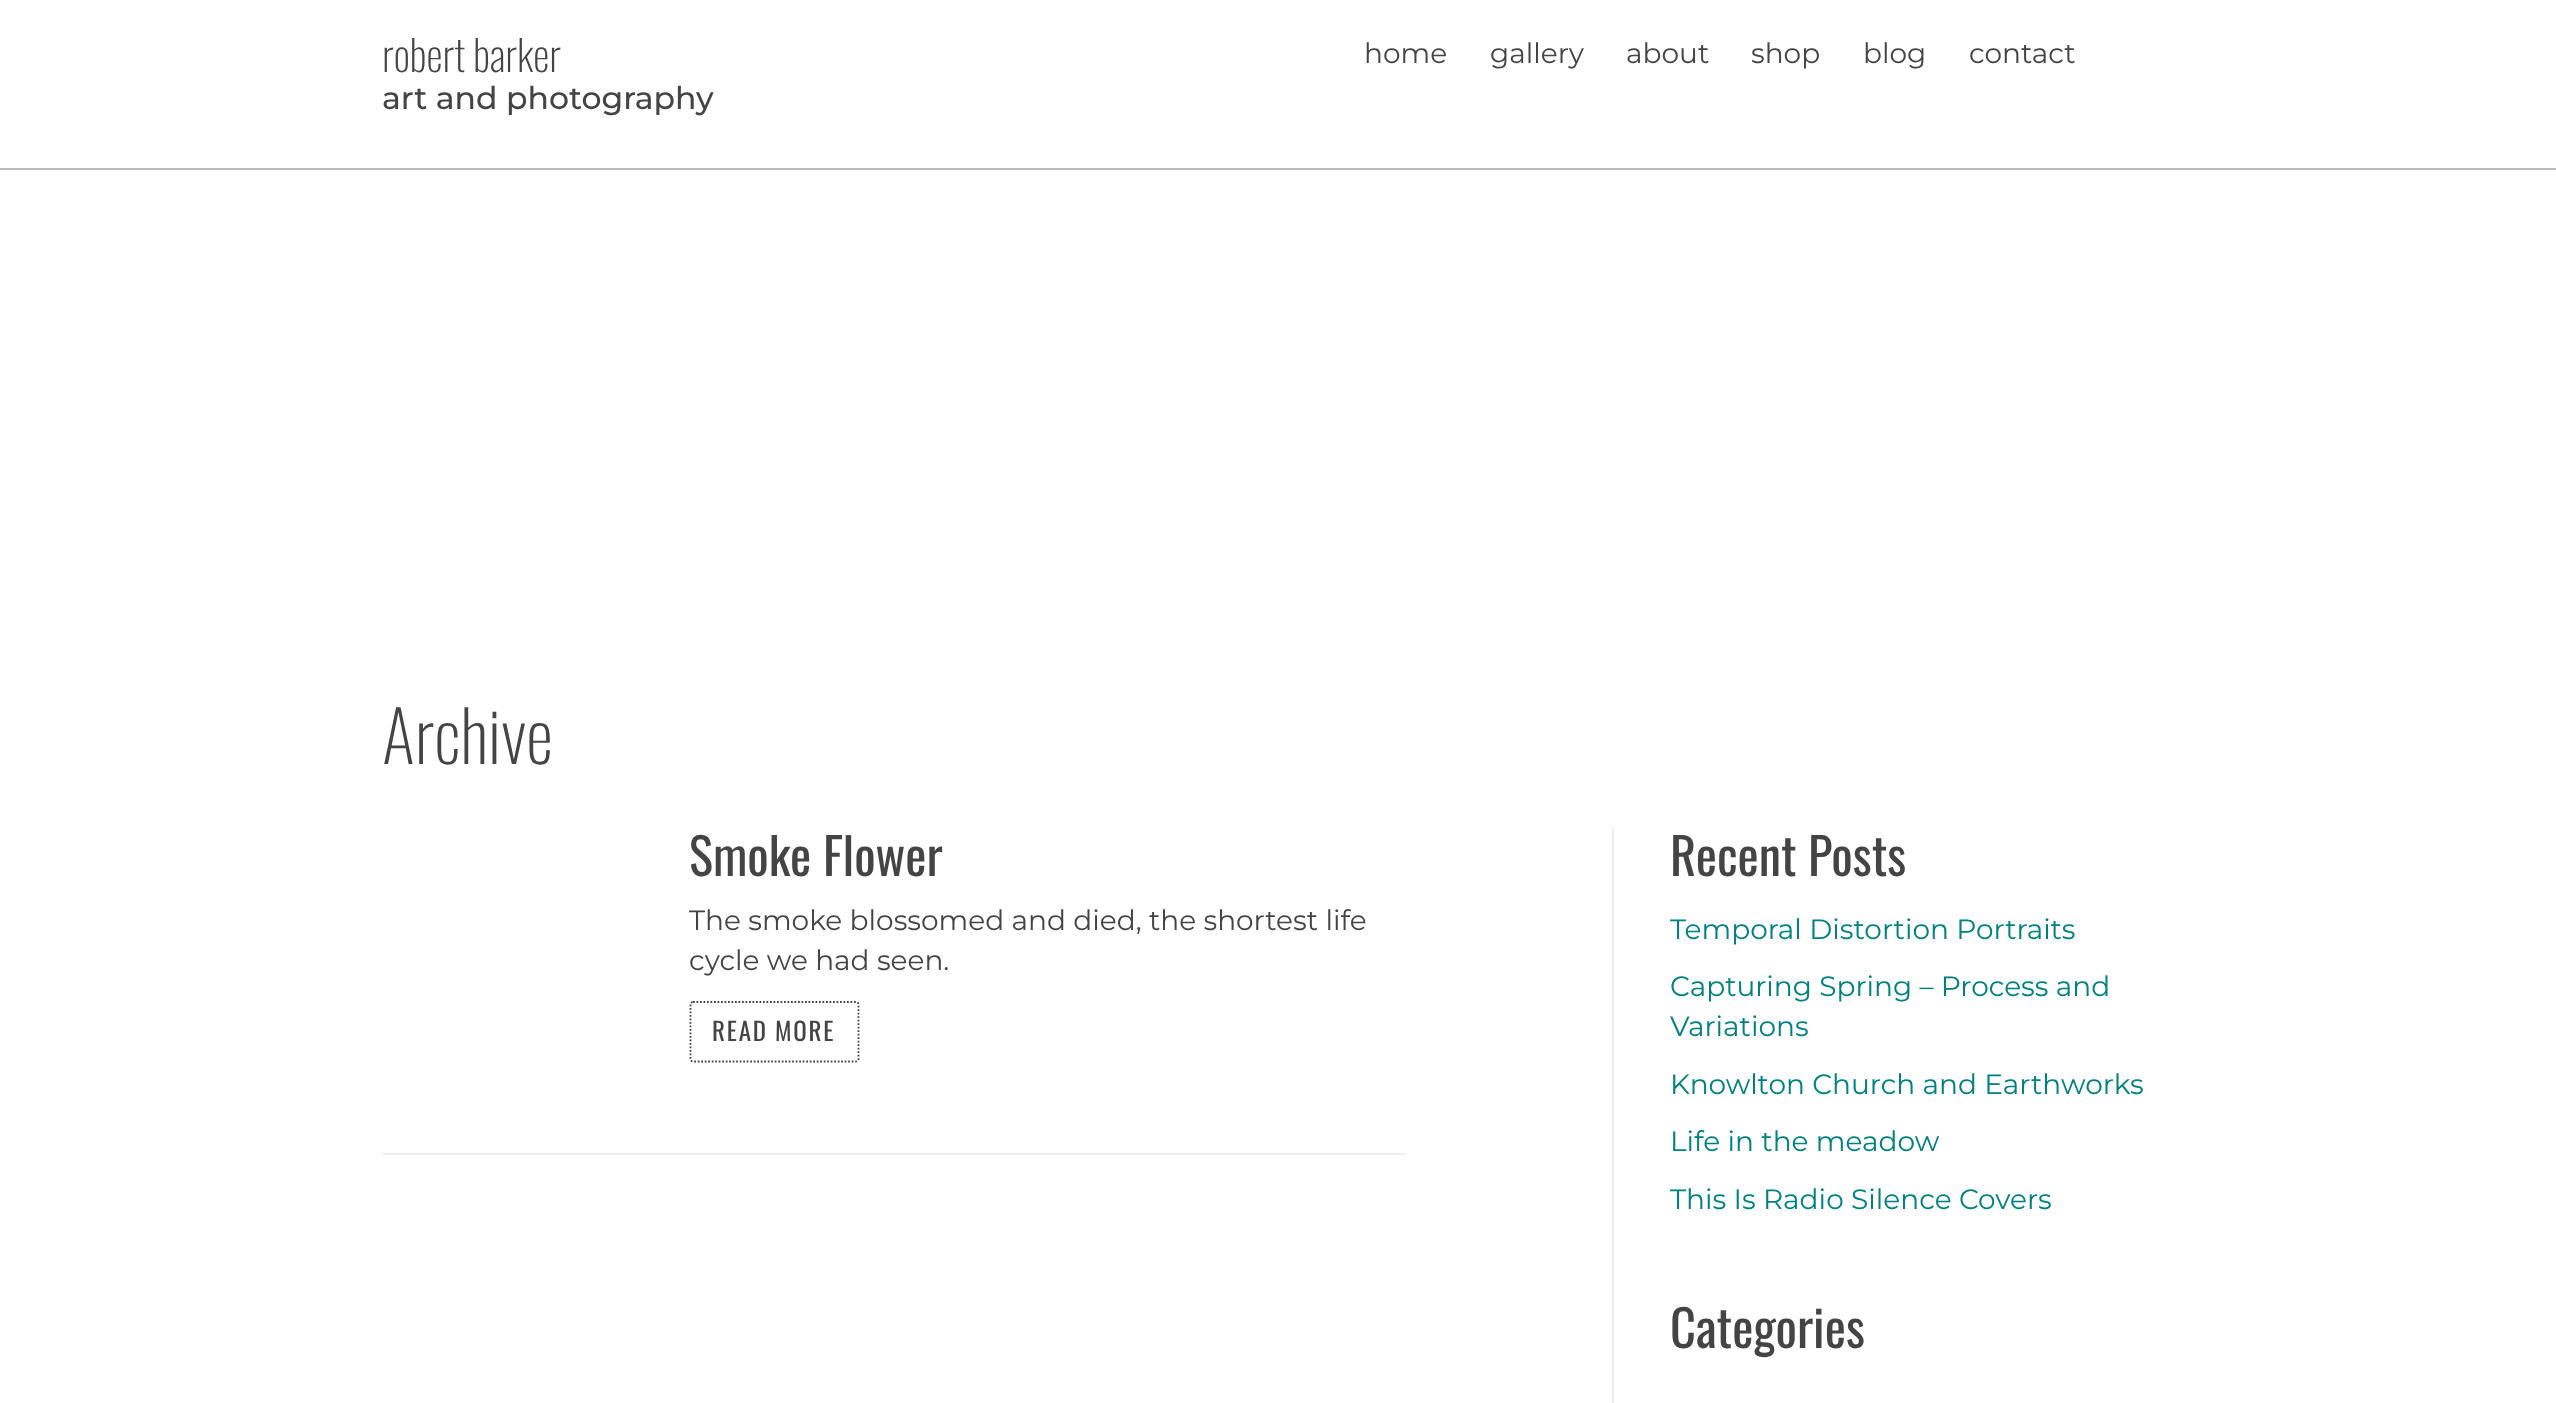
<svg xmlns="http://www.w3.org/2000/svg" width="2556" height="1403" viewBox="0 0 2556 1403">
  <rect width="100%" height="100%" fill="rgb(255,255,255)"/>
  <rect x="0" y="168" width="2556" height="2" fill="rgb(187,187,187)"/>
  <text x="382" y="72" font-family="Oswald" font-size="42" font-weight="200" fill="rgb(68,68,68)">robert barker</text>
  <text x="382" y="109" font-family="Montserrat" font-size="31.5" font-weight="500" fill="rgb(68,68,68)">art and photography</text>
  <g font-family="Montserrat" font-size="28" fill="rgb(68,68,68)">
    <text x="1364" y="63">home</text>
    <text x="1490" y="63">gallery</text>
    <text x="1626" y="63">about</text>
    <text x="1751" y="63">shop</text>
    <text x="1863" y="63">blog</text>
    <text x="1969" y="63">contact</text>
  </g>
  <text x="382" y="764" font-family="Oswald" font-size="70" font-weight="200" fill="rgb(68,68,68)">Archive</text>
  <rect x="383" y="1153" width="1022" height="2" fill="rgb(238,238,238)"/>
  <text x="689" y="876" font-family="Oswald" font-size="50.5" fill="rgb(68,68,68)">Smoke Flower</text>
  <g font-family="Montserrat" font-size="28" fill="rgb(68,68,68)">
    <text>
      <tspan x="689" y="930">The smoke blossomed and died, the shortest life</tspan>
      <tspan x="689" y="970">cycle we had seen.</tspan>
    </text>
  </g>
  <path d="M693 1002H856C857 1002 858.5 1003 858.5 1004.5V1059C858.5 1060 857 1061.5 856 1061.5H693C691.5 1061.5 690.5 1060 690.5 1059V1004.5C690.5 1003 691.5 1002 693 1002Z" fill="none" stroke="rgb(68,68,68)" stroke-width="1.8" stroke-dasharray="1.75 1.75"/>
  <text x="712" y="1041" font-family="Oswald" font-size="25" letter-spacing="1.75" fill="rgb(68,68,68)">READ MORE</text>
  <rect x="1612" y="828" width="2" height="575" fill="rgb(238,238,238)"/>
  <text x="1670" y="876" font-family="Oswald" font-size="50.5" fill="rgb(68,68,68)">Recent Posts</text>
  <g font-family="Montserrat" font-size="28" fill="rgb(0,128,128)">
    <text x="1670" y="939">Temporal Distortion Portraits</text>
    <text>
      <tspan x="1670" y="996">Capturing Spring – Process and</tspan>
      <tspan x="1670" y="1036">Variations</tspan>
    </text>
    <text x="1670" y="1094">Knowlton Church and Earthworks</text>
    <text x="1670" y="1151">Life in the meadow</text>
    <text x="1670" y="1209">This Is Radio Silence Covers</text>
  </g>
  <text x="1670" y="1348" font-family="Oswald" font-size="50.5" fill="rgb(68,68,68)">Categories</text>
</svg>
